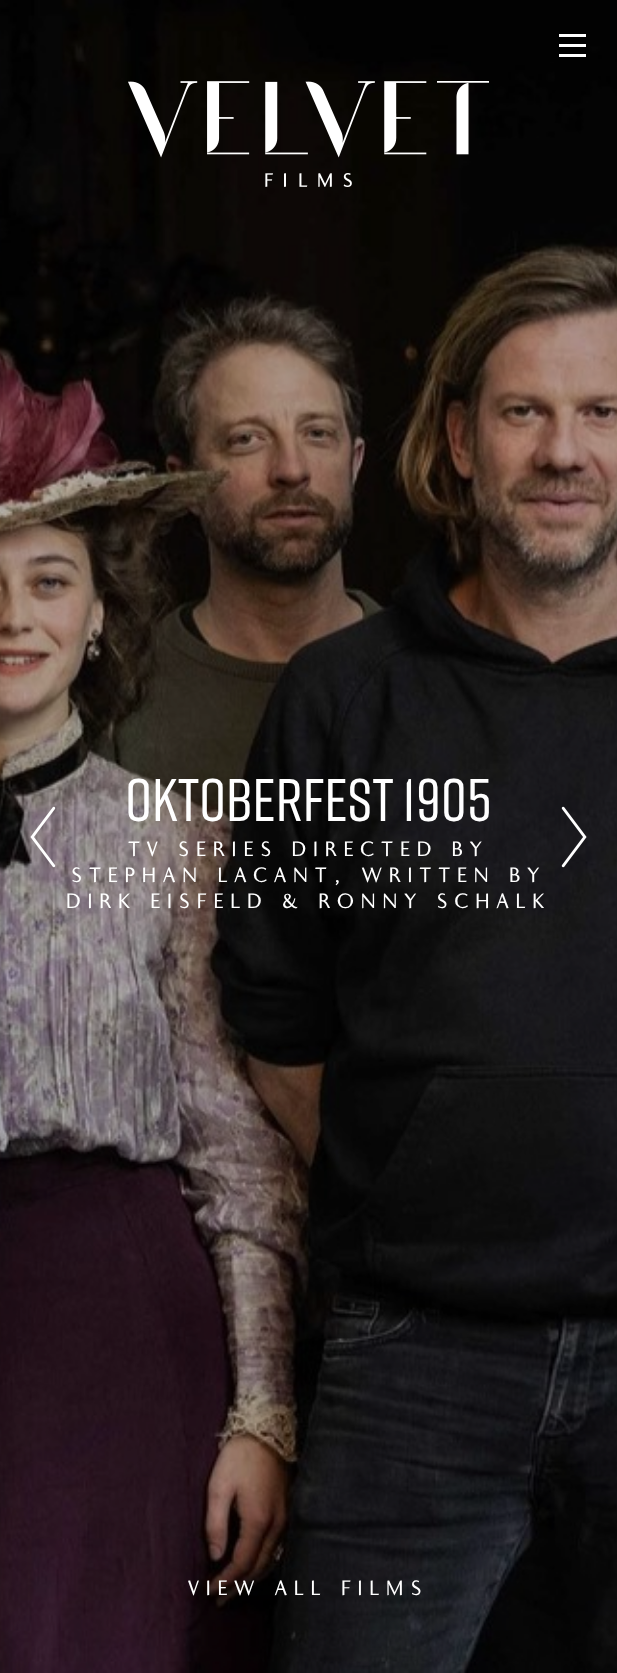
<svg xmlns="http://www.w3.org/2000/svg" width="617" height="1673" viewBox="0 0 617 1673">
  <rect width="100%" height="100%" fill="rgb(255,255,255)"/>
  <image x="0" y="0" width="617" height="1673" href="pic4.png"/>
  <image x="559" y="34" width="27" height="23" href="pic1.png"/>
  <image x="128" y="81" width="361" height="106" href="pic2.png"/>
  <image x="30" y="806" width="26" height="62" href="pic3.png"/>
  <text x="125" y="821" font-family="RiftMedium" font-size="60" fill="rgb(255,255,255)">OKTOBERFEST 1905</text>
  <g font-family="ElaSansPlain" font-size="24" letter-spacing="7" fill="rgb(255,255,255)">
    <text x="128" y="856">TV SERIES DIRECTED BY</text>
    <text x="71" y="882">STEPHAN LACANT, WRITTEN BY</text>
    <text x="66" y="908">DIRK EISFELD &amp; RONNY SCHALK</text>
  </g>
  <image x="561" y="806" width="26" height="62" href="pic5.png"/>
  <text x="188" y="1595" font-family="ElaSansPlain" font-size="24" letter-spacing="7" fill="rgb(255,255,255)">VIEW ALL FILMS</text>
</svg>
